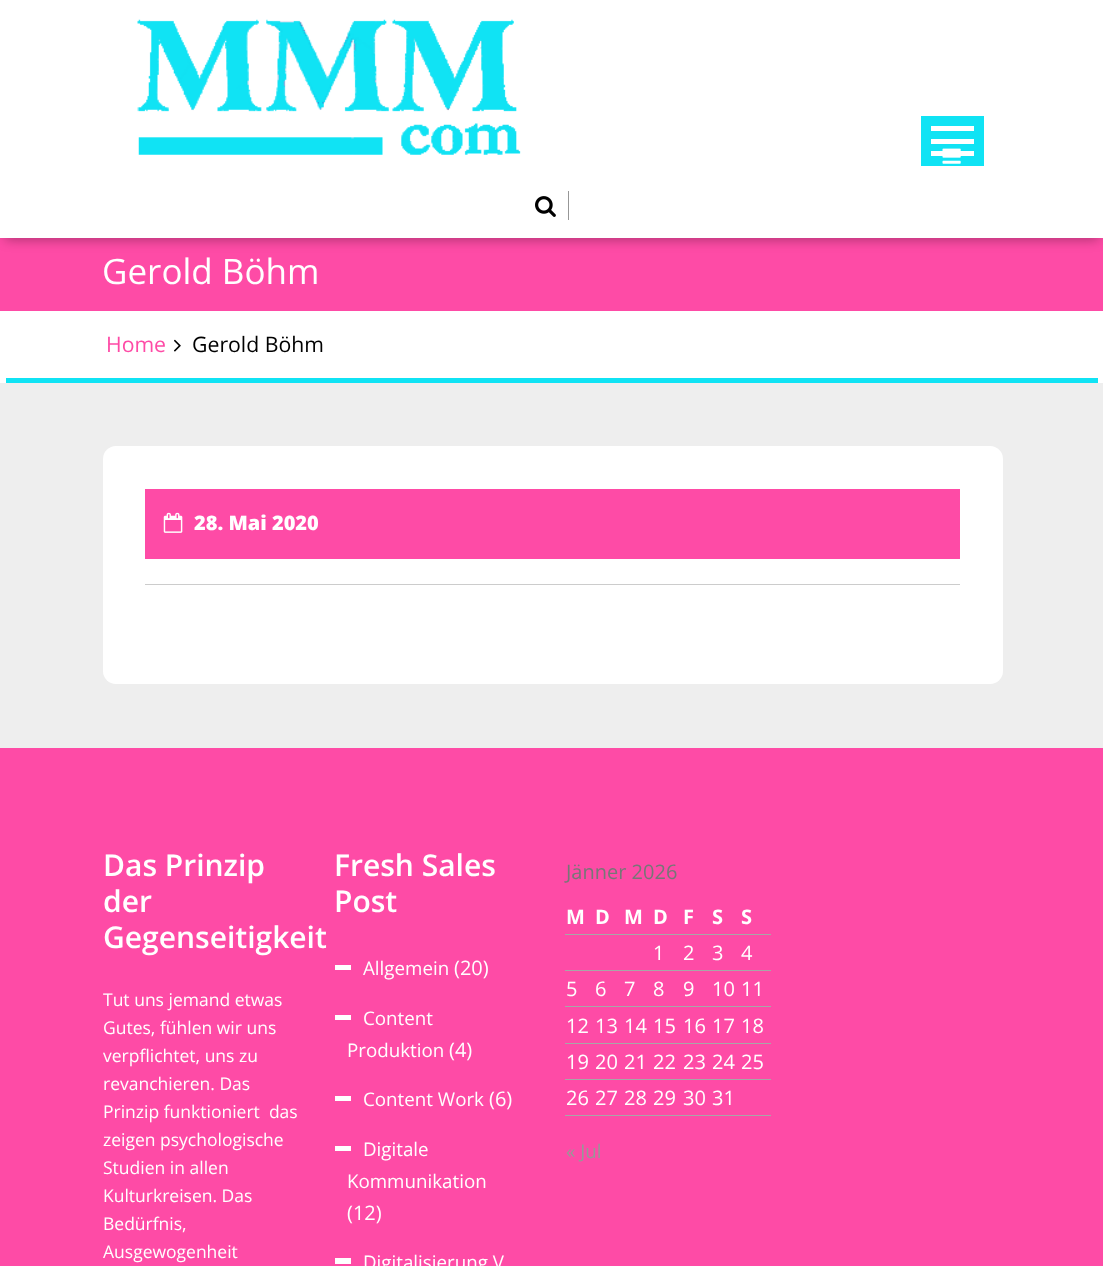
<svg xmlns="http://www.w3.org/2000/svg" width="1103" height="1266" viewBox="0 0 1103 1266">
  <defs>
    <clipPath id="clip1"><path d="M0 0H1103V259H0ZM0-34H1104V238H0Z" clip-rule="evenodd"/></clipPath>
  </defs>
  <rect width="100%" height="100%" fill="rgb(255,255,255)"/>
  <rect x="0" y="238" width="1103" height="73" fill="rgb(254,75,166)"/>
  <g clip-path="url(#clip1)">
    <rect x="5" y="-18" width="1094" height="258" fill="rgba(0,0,0,0.3)" filter="blur(6px)"/>
  </g>
  <image x="137" y="19" width="384" height="136" href="pic1.png"/>
  <rect x="921" y="116" width="63" height="50" fill="rgb(16,227,244)"/>
  <rect x="931" y="126" width="43" height="5" fill="rgb(255,255,255)"/>
  <rect x="931" y="151" width="43" height="5" fill="rgb(255,255,255)"/>
  <rect x="931" y="139" width="43" height="5" fill="rgb(255,255,255)"/>
  <image x="942" y="148" width="19" height="16" href="pic2.png"/>
  <rect x="568" y="191" width="1" height="29" fill="rgb(151,151,151)"/>
  <image x="535" y="196" width="21" height="21" href="pic3.png"/>
  <text x="102" y="284" font-family="Open Sans" font-size="35" fill="rgb(255,255,255)">Gerold Böhm</text>
  <rect x="6" y="378" width="1092" height="5" fill="rgb(16,227,244)"/>
  <text x="106" y="352" font-family="Open Sans" font-size="21.25" fill="rgb(254,75,166)">Home</text>
  <image x="174" y="339" width="7" height="13" href="pic4.png"/>
  <text x="192" y="352" font-family="Open Sans" font-size="21.25" fill="rgb(0,0,0)">Gerold Böhm</text>
  <rect x="0" y="383" width="1103" height="365" fill="rgb(238,238,238)"/>
  <rect x="103" y="446" width="900" height="238" rx="13" fill="rgb(255,255,255)"/>
  <rect x="145" y="489" width="815" height="70" fill="rgb(254,75,166)"/>
  <image x="163" y="512" width="20" height="21" href="pic5.png"/>
  <text x="194" y="530" font-family="Open Sans" font-size="20" font-weight="800" fill="rgb(255,255,255)">28. Mai 2020</text>
  <rect x="145" y="584" width="815" height="1" fill="rgb(204,204,204)"/>
  <rect x="0" y="748" width="1103" height="518" fill="rgb(254,75,166)"/>
  <g font-family="Open Sans" font-size="30" font-weight="600" fill="rgb(255,255,255)">
    <text>
      <tspan x="103" y="876">Das Prinzip</tspan>
      <tspan x="103" y="912">der</tspan>
      <tspan x="103" y="948">Gegenseitigkeit</tspan>
    </text>
  </g>
  <g font-family="Open Sans" font-size="17.5" fill="rgb(255,255,255)">
    <text xml:space="preserve"><tspan x="103" y="1006">Tut uns jemand etwas</tspan><tspan x="103" y="1034">Gutes, fühlen wir uns</tspan><tspan x="103" y="1062">verpflichtet, uns zu</tspan><tspan x="103" y="1090">revanchieren. Das</tspan><tspan x="103" y="1118">Prinzip funktioniert  das</tspan><tspan x="103" y="1146">zeigen psychologische</tspan><tspan x="103" y="1174">Studien in allen</tspan><tspan x="103" y="1202">Kulturkreisen. Das</tspan><tspan x="103" y="1230">Bedürfnis,</tspan><tspan x="103" y="1258">Ausgewogenheit</tspan></text>
  </g>
  <g font-family="Open Sans" font-size="30" font-weight="600" fill="rgb(255,255,255)">
    <text>
      <tspan x="334" y="876">Fresh Sales</tspan>
      <tspan x="334" y="912">Post</tspan>
    </text>
  </g>
  <rect x="335" y="965" width="16" height="5" fill="rgb(255,255,255)"/>
  <text x="363" y="975" font-family="Open Sans" font-size="18.75" fill="rgb(255,255,255)">Allgemein</text>
  <text x="454" y="975" font-family="Open Sans" font-size="20" fill="rgb(255,255,255)">(20)</text>
  <rect x="335" y="1015" width="16" height="5" fill="rgb(255,255,255)"/>
  <g font-family="Open Sans" font-size="18.75" fill="rgb(255,255,255)">
    <text x="363" y="1025">Content</text>
    <text x="347" y="1057">Produktion</text>
  </g>
  <text x="449" y="1057" font-family="Open Sans" font-size="20" fill="rgb(255,255,255)">(4)</text>
  <rect x="335" y="1096" width="16" height="5" fill="rgb(255,255,255)"/>
  <text x="363" y="1106" font-family="Open Sans" font-size="18.75" fill="rgb(255,255,255)">Content Work</text>
  <text x="489" y="1106" font-family="Open Sans" font-size="20" fill="rgb(255,255,255)">(6)</text>
  <rect x="335" y="1146" width="16" height="5" fill="rgb(255,255,255)"/>
  <g font-family="Open Sans" font-size="18.75" fill="rgb(255,255,255)">
    <text x="363" y="1156">Digitale</text>
    <text x="347" y="1188">Kommunikation</text>
  </g>
  <text x="347" y="1220" font-family="Open Sans" font-size="20" fill="rgb(255,255,255)">(12)</text>
  <rect x="335" y="1258" width="16" height="6" fill="rgb(255,255,255)"/>
  <text x="363" y="1269" font-family="Open Sans" font-size="18.75" fill="rgb(255,255,255)">Digitalisierung V</text>
  <text x="566" y="879" font-family="Open Sans" font-size="20" fill="rgb(119,119,119)">Jänner 2026</text>
  <rect x="565" y="934" width="206" height="1" fill="rgb(167,167,167)"/>
  <g font-family="Open Sans" font-size="20" font-weight="bold" fill="rgb(255,255,255)">
    <text x="566" y="924">M</text>
    <text x="595" y="924">D</text>
    <text x="624" y="924">M</text>
    <text x="653" y="924">D</text>
    <text x="683" y="924">F</text>
    <text x="712" y="924">S</text>
    <text x="741" y="924">S</text>
  </g>
  <rect x="565" y="970" width="206" height="1" fill="rgb(167,167,167)"/>
  <g font-family="Open Sans" font-size="20" fill="rgb(255,255,255)">
    <text x="653" y="960">1</text>
    <text x="683" y="960">2</text>
    <text x="712" y="960">3</text>
    <text x="741" y="960">4</text>
  </g>
  <rect x="565" y="1006" width="206" height="1" fill="rgb(167,167,167)"/>
  <g font-family="Open Sans" font-size="20" fill="rgb(255,255,255)">
    <text x="566" y="996">5</text>
    <text x="595" y="996">6</text>
    <text x="624" y="996">7</text>
    <text x="653" y="996">8</text>
    <text x="683" y="996">9</text>
    <text x="712" y="996">10</text>
    <text x="741" y="996">11</text>
  </g>
  <rect x="565" y="1043" width="206" height="1" fill="rgb(167,167,167)"/>
  <g font-family="Open Sans" font-size="20" fill="rgb(255,255,255)">
    <text x="566" y="1033">12</text>
    <text x="595" y="1033">13</text>
    <text x="624" y="1033">14</text>
    <text x="653" y="1033">15</text>
    <text x="683" y="1033">16</text>
    <text x="712" y="1033">17</text>
    <text x="741" y="1033">18</text>
  </g>
  <rect x="565" y="1079" width="206" height="1" fill="rgb(167,167,167)"/>
  <g font-family="Open Sans" font-size="20" fill="rgb(255,255,255)">
    <text x="566" y="1069">19</text>
    <text x="595" y="1069">20</text>
    <text x="624" y="1069">21</text>
    <text x="653" y="1069">22</text>
    <text x="683" y="1069">23</text>
    <text x="712" y="1069">24</text>
    <text x="741" y="1069">25</text>
  </g>
  <rect x="565" y="1115" width="206" height="1" fill="rgb(167,167,167)"/>
  <g font-family="Open Sans" font-size="20" fill="rgb(255,255,255)">
    <text x="566" y="1105">26</text>
    <text x="595" y="1105">27</text>
    <text x="624" y="1105">28</text>
    <text x="653" y="1105">29</text>
    <text x="683" y="1105">30</text>
    <text x="712" y="1105">31</text>
  </g>
  <text x="566" y="1158" font-family="Open Sans" font-size="18.75" fill="rgb(152,152,152)">« Jul</text>
</svg>
